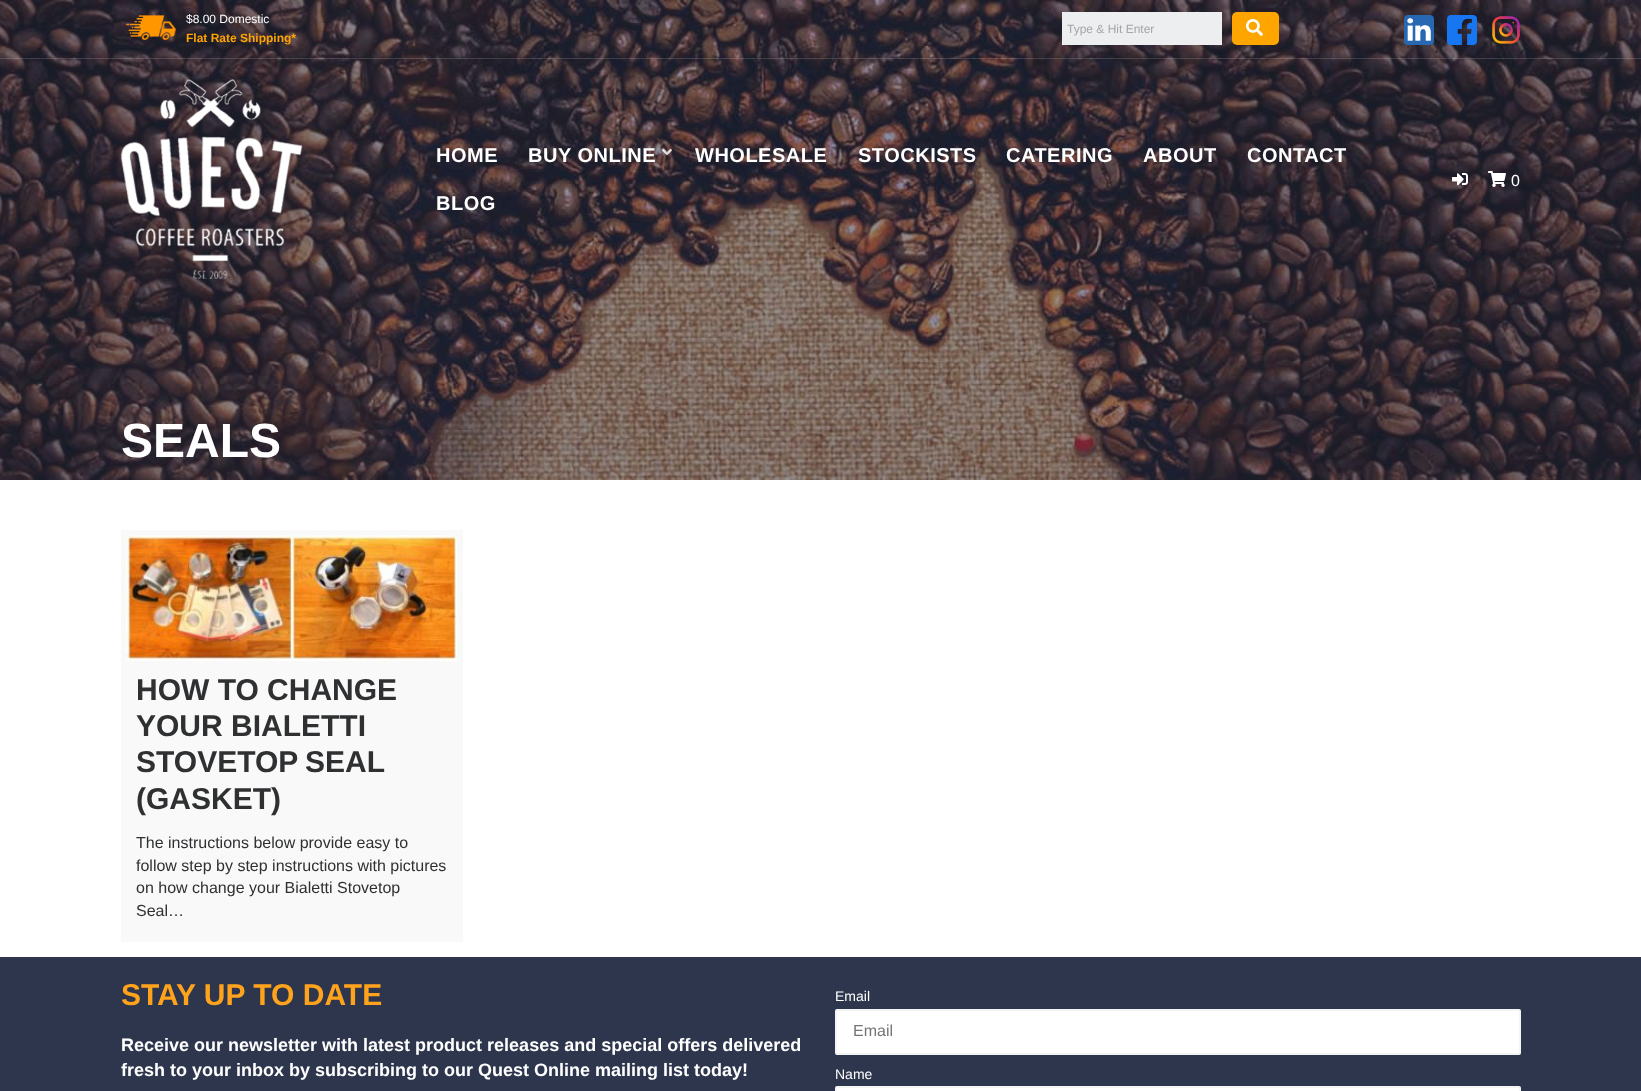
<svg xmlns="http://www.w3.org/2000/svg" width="1641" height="1091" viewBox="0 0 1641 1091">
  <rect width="100%" height="100%" fill="rgb(255,255,255)"/>
  <image x="0" y="0" width="1641" height="480" href="pic10.png"/>
  <rect x="0" y="58" width="1641" height="1" fill="rgba(255,255,255,0.15)"/>
  <image x="125" y="15" width="51" height="25" href="pic1.png"/>
  <text x="186" y="23" font-family="Liberation Sans" font-size="12" fill="rgb(255,255,255)">$8.00 Domestic</text>
  <text x="186" y="42" font-family="Liberation Sans" font-size="12" font-weight="bold" fill="rgb(255,165,0)">Flat Rate Shipping*</text>
  <rect x="1062" y="12" width="160" height="33" fill="rgb(236,238,239)"/>
  <text x="1067" y="33" font-family="Liberation Sans" font-size="12" fill="rgb(165,165,166)">Type &amp; Hit Enter</text>
  <rect x="1232" y="12" width="47" height="33" rx="5" fill="rgb(255,165,0)"/>
  <image x="1246" y="19" width="17" height="17" href="pic2.png"/>
  <image x="1404" y="15" width="30" height="30" href="pic3.png"/>
  <image x="1447" y="15" width="30" height="30" href="pic4.png"/>
  <image x="1492" y="16" width="28" height="28" href="pic5.png"/>
  <image x="120" y="79" width="183" height="200" href="pic6.png"/>
  <g font-family="Liberation Sans" font-size="20" font-weight="bold" letter-spacing="0.5" fill="rgb(255,255,255)">
    <text x="436" y="162">HOME</text>
    <text x="528" y="162">BUY ONLINE</text>
  </g>
  <image x="662" y="148" width="10" height="8" href="pic7.png"/>
  <g font-family="Liberation Sans" font-size="20" font-weight="bold" letter-spacing="0.5" fill="rgb(255,255,255)">
    <text x="695" y="162">WHOLESALE</text>
    <text x="858" y="162">STOCKISTS</text>
    <text x="1006" y="162">CATERING</text>
    <text x="1143" y="162">ABOUT</text>
    <text x="1247" y="162">CONTACT</text>
    <text x="436" y="210">BLOG</text>
  </g>
  <image x="1452" y="173" width="16" height="13" href="pic8.png"/>
  <image x="1488" y="171" width="18" height="16" href="pic9.png"/>
  <text x="1511" y="186" font-family="Liberation Sans" font-size="16" fill="rgb(255,255,255)">0</text>
  <text x="121" y="457" font-family="Liberation Sans" font-size="48" font-weight="bold" fill="rgb(255,255,255)">SEALS</text>
  <rect x="121" y="530" width="342" height="412" fill="rgb(249,249,249)"/>
  <image x="126" y="535" width="332" height="126" href="pic11.png"/>
  <g font-family="Liberation Sans" font-size="30" font-weight="bold" fill="rgb(47,48,50)">
    <text>
      <tspan x="136" y="700">HOW TO CHANGE</tspan>
      <tspan x="136" y="736">YOUR BIALETTI</tspan>
      <tspan x="136" y="772" word-spacing="-1">STOVETOP SEAL</tspan>
      <tspan x="136" y="809">(GASKET)</tspan>
    </text>
  </g>
  <g font-family="Liberation Sans" font-size="16" fill="rgb(47,48,50)">
    <text>
      <tspan x="136" y="848">The instructions below provide easy to</tspan>
      <tspan x="136" y="871">follow step by step instructions with pictures</tspan>
      <tspan x="136" y="893">on how change your Bialetti Stovetop</tspan>
      <tspan x="136" y="916">Seal…</tspan>
    </text>
  </g>
  <rect x="0" y="957" width="1641" height="134" fill="rgb(45,54,76)"/>
  <text x="121" y="1005" font-family="Liberation Sans" font-size="30" font-weight="bold" fill="rgb(254,163,27)">STAY UP TO DATE</text>
  <g font-family="Liberation Sans" font-size="18" font-weight="bold" fill="rgb(255,255,255)">
    <text>
      <tspan x="121" y="1051">Receive our newsletter with latest product releases and special offers delivered</tspan>
      <tspan x="121" y="1076">fresh to your inbox by subscribing to our Quest Online mailing list today!</tspan>
    </text>
  </g>
  <text x="835" y="1001" font-family="Liberation Sans" font-size="14" fill="rgb(255,255,255)">Email</text>
  <rect x="836" y="1010" width="684" height="44" rx="1" fill="rgb(255,255,255)" stroke="rgb(245,245,245)" stroke-width="2"/>
  <text x="853" y="1036" font-family="Liberation Sans" font-size="16" fill="rgb(117,117,117)">Email</text>
  <text x="835" y="1079" font-family="Liberation Sans" font-size="14" fill="rgb(255,255,255)">Name</text>
  <rect x="836" y="1087" width="684" height="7" rx="1" fill="rgb(255,255,255)" stroke="rgb(245,245,245)" stroke-width="2"/>
</svg>
